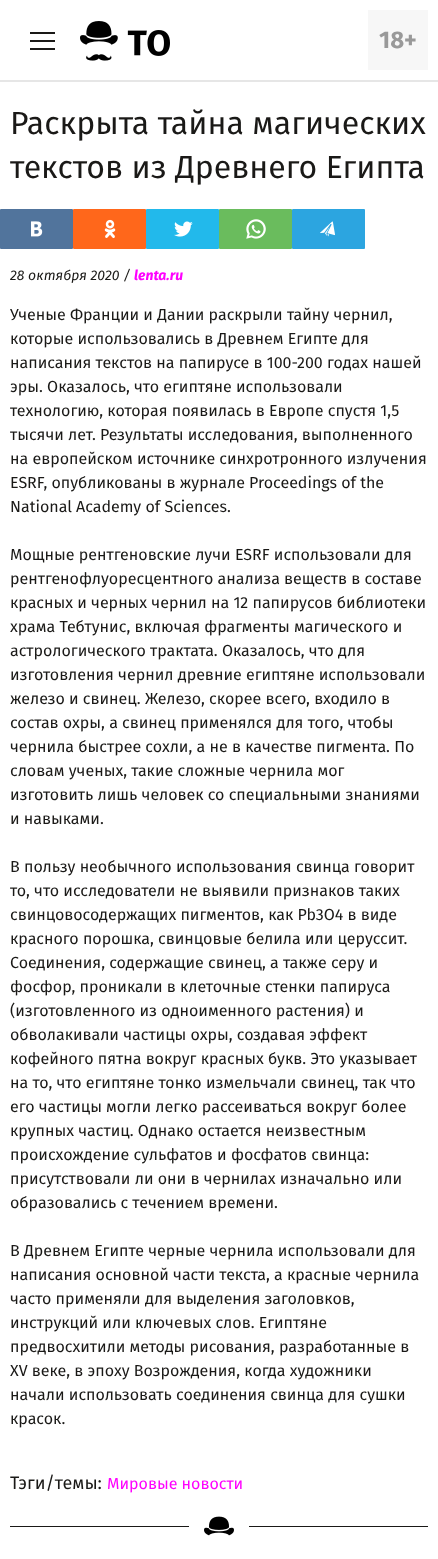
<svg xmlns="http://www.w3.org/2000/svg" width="438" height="1559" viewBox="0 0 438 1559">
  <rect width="100%" height="100%" fill="rgb(255,255,255)"/>
  <rect x="0" y="80" width="438" height="2" fill="rgb(230,230,230)"/>
  <rect x="30" y="40" width="25" height="2" fill="rgb(26,25,23)"/>
  <rect x="30" y="32" width="25" height="2" fill="rgb(26,25,23)"/>
  <rect x="30" y="48" width="25" height="2" fill="rgb(26,25,23)"/>
  <image x="80" y="21" width="90" height="40" href="pic1.png"/>
  <rect x="368" y="10" width="60" height="60" fill="rgb(247,247,247)"/>
  <text x="379" y="48" font-family="Fira Sans" font-size="24" font-weight="bold" fill="rgb(153,153,153)">18+</text>
  <g font-family="Fira Sans" font-size="32" fill="rgb(26,25,23)">
    <text>
      <tspan x="10" y="134">Раскрыта тайна магических</tspan>
      <tspan x="10" y="178">текстов из Древнего Египта</tspan>
    </text>
  </g>
  <rect x="0" y="209" width="73" height="40" rx="1" fill="rgb(81,116,156)"/>
  <image x="31" y="221" width="12" height="16" href="pic2.png"/>
  <rect x="73" y="209" width="73" height="40" rx="1" fill="rgb(255,103,27)"/>
  <image x="104" y="219" width="12" height="20" href="pic3.png"/>
  <rect x="146" y="209" width="73" height="40" rx="1" fill="rgb(34,185,235)"/>
  <image x="174" y="221" width="19" height="16" href="pic4.png"/>
  <rect x="219" y="209" width="73" height="40" rx="1" fill="rgb(106,188,93)"/>
  <image x="246" y="219" width="20" height="20" href="pic5.png"/>
  <rect x="292" y="209" width="73" height="40" rx="1" fill="rgb(44,165,224)"/>
  <image x="320" y="221" width="15" height="16" href="pic6.png"/>
  <text x="10" y="280" font-family="Fira Sans" font-size="14" font-style="italic" fill="rgb(26,25,23)">28 октября 2020 /</text>
  <text x="134" y="280" font-family="Fira Sans" font-size="14" font-weight="bold" font-style="italic" fill="rgb(255,0,255)">lenta.ru</text>
  <g font-family="Fira Sans" font-size="16" fill="rgb(26,25,23)">
    <text>
      <tspan x="10" y="320">Ученые Франции и Дании раскрыли тайну чернил,</tspan>
      <tspan x="10" y="344">которые использовались в Древнем Египте для</tspan>
      <tspan x="10" y="368">написания текстов на папирусе в 100-200 годах нашей</tspan>
      <tspan x="10" y="392">эры. Оказалось, что египтяне использовали</tspan>
      <tspan x="10" y="416">технологию, которая появилась в Европе спустя 1,5</tspan>
      <tspan x="10" y="440">тысячи лет. Результаты исследования, выполненного</tspan>
      <tspan x="10" y="464">на европейском источнике синхротронного излучения</tspan>
      <tspan x="10" y="488">ESRF, опубликованы в журнале Proceedings of the</tspan>
      <tspan x="10" y="512">National Academy of Sciences.</tspan>
    </text>
    <text>
      <tspan x="10" y="560">Мощные рентгеновские лучи ESRF использовали для</tspan>
      <tspan x="10" y="584">рентгенофлуоресцентного анализа веществ в составе</tspan>
      <tspan x="10" y="608">красных и черных чернил на 12 папирусов библиотеки</tspan>
      <tspan x="10" y="632">храма Тебтунис, включая фрагменты магического и</tspan>
      <tspan x="10" y="656">астрологического трактата. Оказалось, что для</tspan>
      <tspan x="10" y="680">изготовления чернил древние египтяне использовали</tspan>
      <tspan x="10" y="704">железо и свинец. Железо, скорее всего, входило в</tspan>
      <tspan x="10" y="728">состав охры, а свинец применялся для того, чтобы</tspan>
      <tspan x="10" y="752">чернила быстрее сохли, а не в качестве пигмента. По</tspan>
      <tspan x="10" y="776">словам ученых, такие сложные чернила мог</tspan>
      <tspan x="10" y="800">изготовить лишь человек со специальными знаниями</tspan>
      <tspan x="10" y="824">и навыками.</tspan>
    </text>
    <text>
      <tspan x="10" y="872">В пользу необычного использования свинца говорит</tspan>
      <tspan x="10" y="896">то, что исследователи не выявили признаков таких</tspan>
      <tspan x="10" y="920">свинцовосодержащих пигментов, как Pb3O4 в виде</tspan>
      <tspan x="10" y="944">красного порошка, свинцовые белила или церуссит.</tspan>
      <tspan x="10" y="968">Соединения, содержащие свинец, а также серу и</tspan>
      <tspan x="10" y="992">фосфор, проникали в клеточные стенки папируса</tspan>
      <tspan x="10" y="1016">(изготовленного из одноименного растения) и</tspan>
      <tspan x="10" y="1040">обволакивали частицы охры, создавая эффект</tspan>
      <tspan x="10" y="1064">кофейного пятна вокруг красных букв. Это указывает</tspan>
      <tspan x="10" y="1088">на то, что египтяне тонко измельчали свинец, так что</tspan>
      <tspan x="10" y="1112">его частицы могли легко рассеиваться вокруг более</tspan>
      <tspan x="10" y="1136">крупных частиц. Однако остается неизвестным</tspan>
      <tspan x="10" y="1160">происхождение сульфатов и фосфатов свинца:</tspan>
      <tspan x="10" y="1184">присутствовали ли они в чернилах изначально или</tspan>
      <tspan x="10" y="1208">образовались с течением времени.</tspan>
    </text>
    <text>
      <tspan x="10" y="1256">В Древнем Египте черные чернила использовали для</tspan>
      <tspan x="10" y="1280">написания основной части текста, а красные чернила</tspan>
      <tspan x="10" y="1304">часто применяли для выделения заголовков,</tspan>
      <tspan x="10" y="1328">инструкций или ключевых слов. Египтяне</tspan>
      <tspan x="10" y="1352">предвосхитили методы рисования, разработанные в</tspan>
      <tspan x="10" y="1376">XV веке, в эпоху Возрождения, когда художники</tspan>
      <tspan x="10" y="1400">начали использовать соединения свинца для сушки</tspan>
      <tspan x="10" y="1424">красок.</tspan>
    </text>
  </g>
  <text x="10" y="1489" font-family="Fira Sans" font-size="18" fill="rgb(26,25,23)">Тэги/темы:</text>
  <text x="107" y="1489" font-family="Fira Sans" font-size="16" fill="rgb(255,0,255)">Мировые новости</text>
  <image x="204" y="1516" width="30" height="20" href="pic7.png"/>
  <rect x="10" y="1526" width="179" height="1" fill="rgb(26,25,23)"/>
  <rect x="249" y="1526" width="179" height="1" fill="rgb(26,25,23)"/>
</svg>
